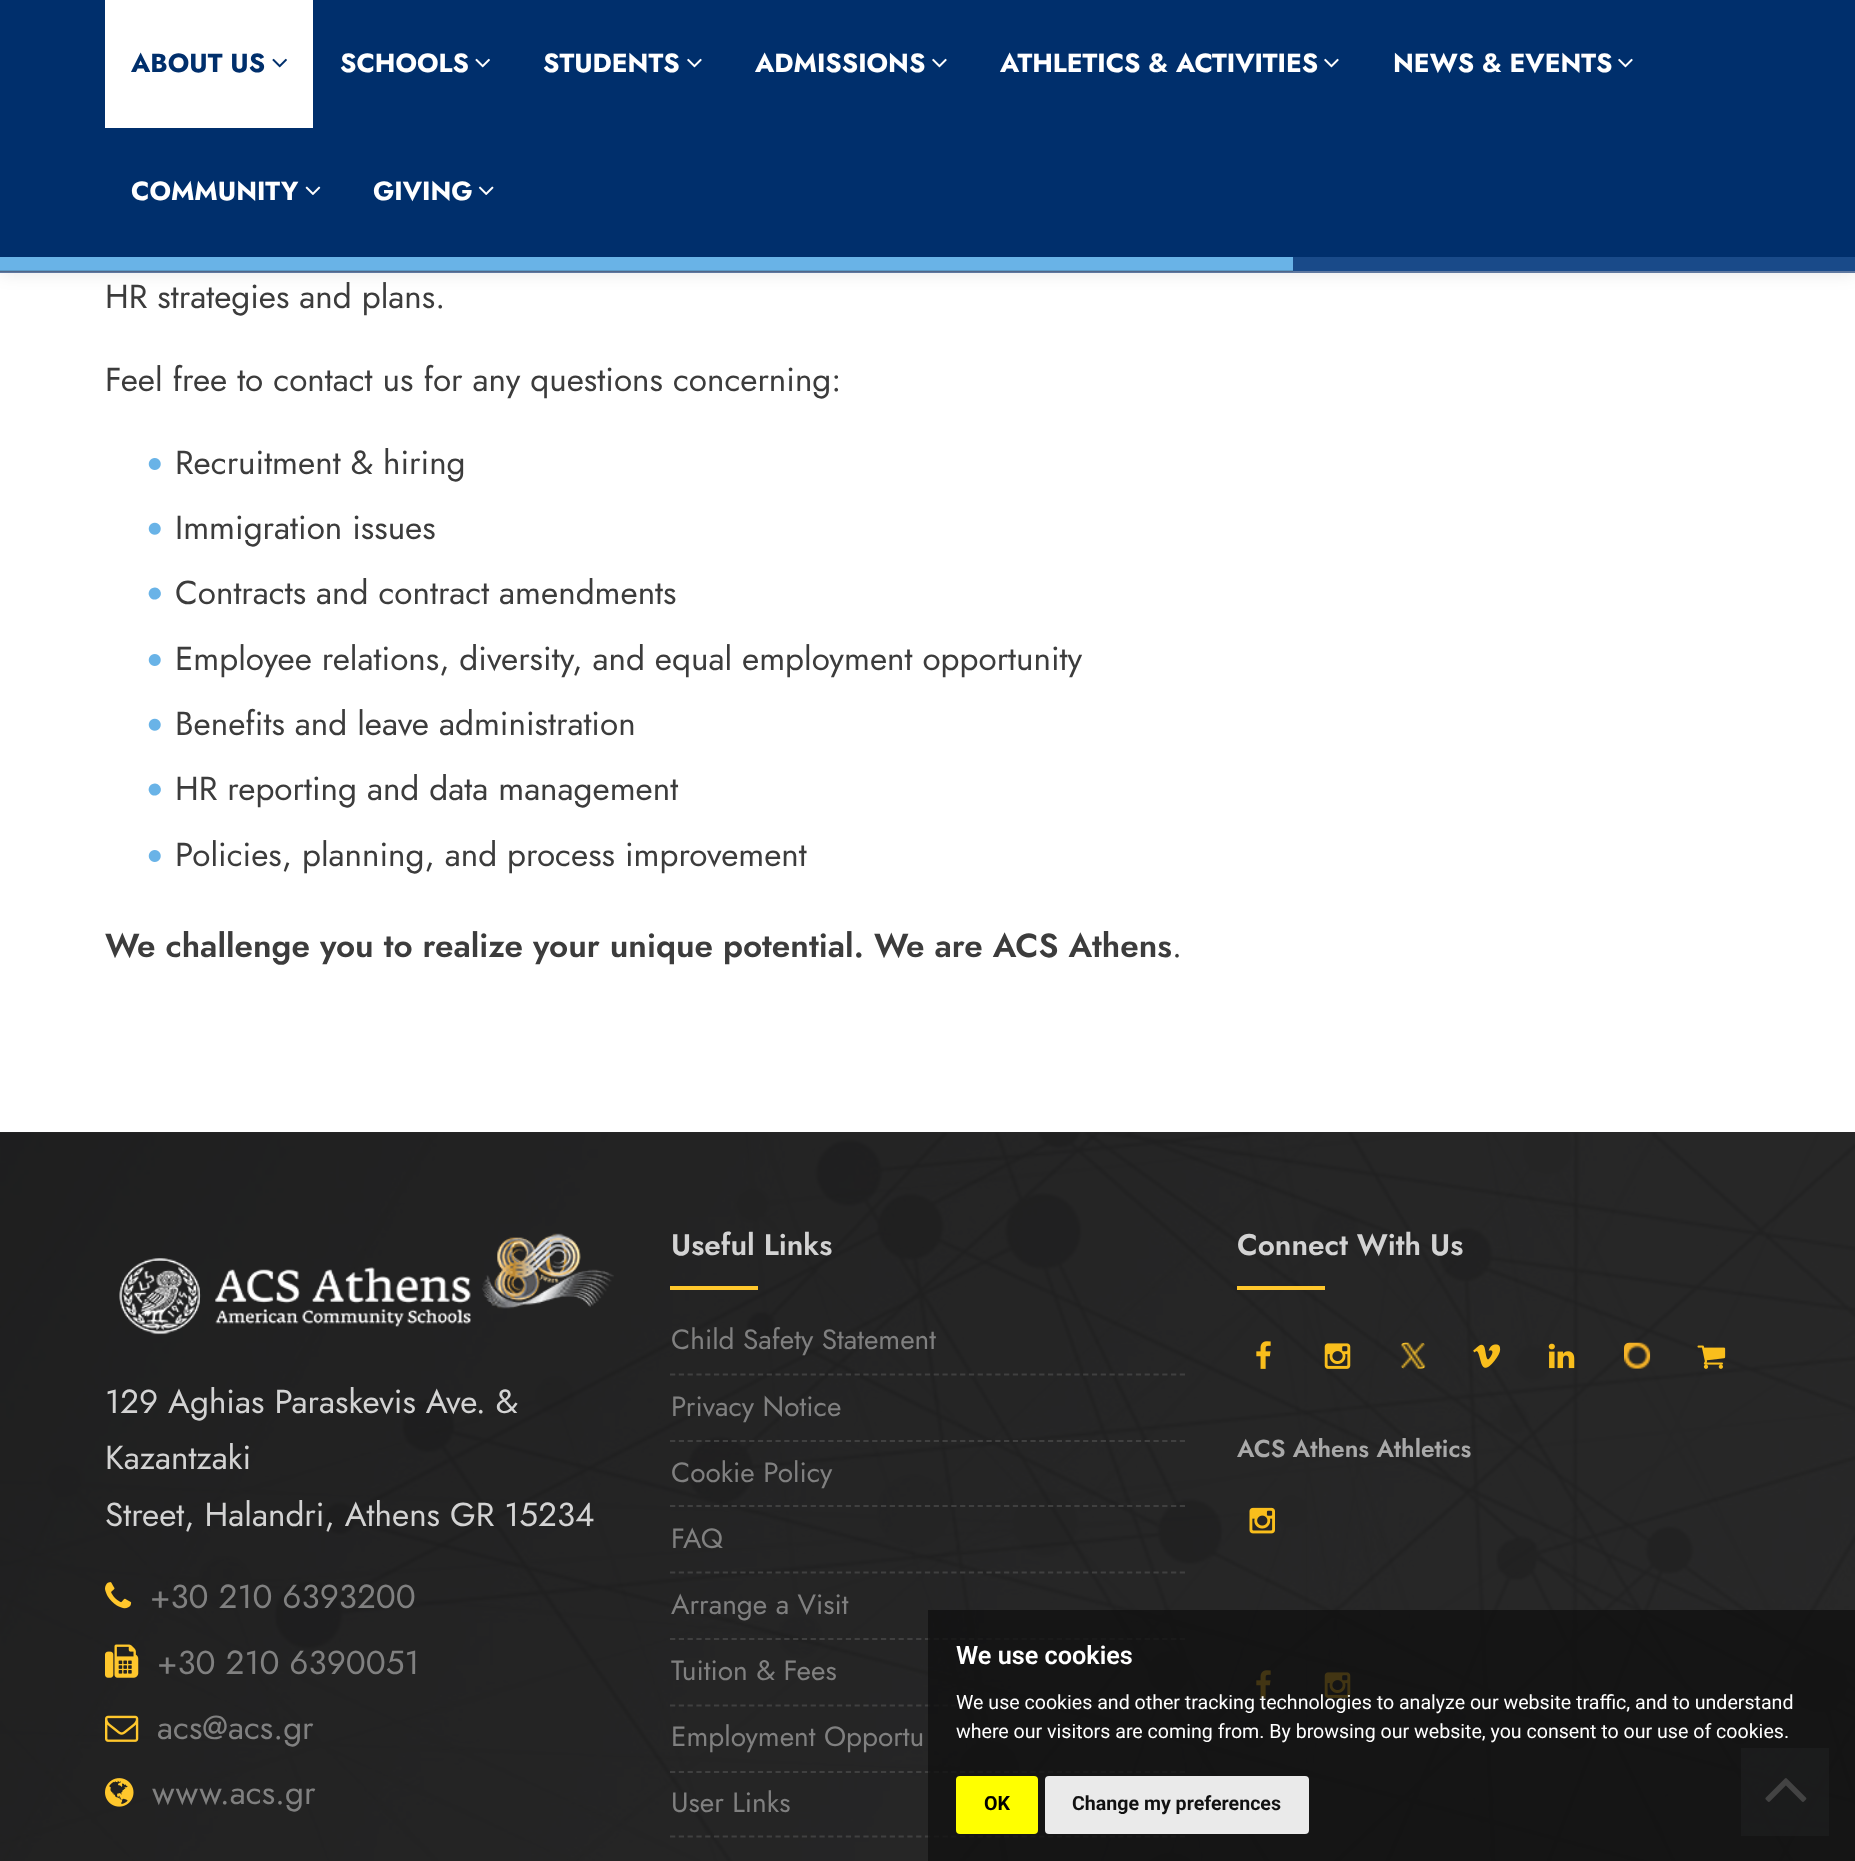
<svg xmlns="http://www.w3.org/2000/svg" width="1855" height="1861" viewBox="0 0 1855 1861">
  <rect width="100%" height="100%" fill="rgb(255,255,255)"/>
  <rect x="0" y="0" width="1855" height="273" fill="rgba(0,0,0,0.1)" filter="blur(9px)"/>
  <rect x="0" y="0" width="1855" height="257" fill="rgb(0,47,108)"/>
  <rect x="0" y="271" width="1855" height="2" fill="rgb(95,120,160)"/>
  <rect x="0" y="271" width="1293" height="1" fill="rgb(81,102,136)"/>
  <rect x="105" y="0" width="208" height="128" fill="rgb(255,255,255)"/>
  <text x="131" y="72" font-family="Jost" font-size="26.25" font-weight="bold" fill="rgb(0,47,108)">ABOUT US</text>
  <image x="272" y="58" width="15" height="10" href="pic1.png"/>
  <text x="340" y="72" font-family="Jost" font-size="26.25" font-weight="bold" fill="rgb(255,255,255)">SCHOOLS</text>
  <image x="475" y="58" width="15" height="10" href="pic2.png"/>
  <text x="543" y="72" font-family="Jost" font-size="26.25" font-weight="bold" fill="rgb(255,255,255)">STUDENTS</text>
  <image x="687" y="58" width="15" height="10" href="pic3.png"/>
  <text x="755" y="72" font-family="Jost" font-size="26.25" font-weight="bold" fill="rgb(255,255,255)">ADMISSIONS</text>
  <image x="932" y="58" width="15" height="10" href="pic3.png"/>
  <text x="1000" y="72" font-family="Jost" font-size="26.25" font-weight="bold" fill="rgb(255,255,255)">ATHLETICS &amp; ACTIVITIES</text>
  <image x="1324" y="58" width="15" height="10" href="pic3.png"/>
  <text x="1393" y="72" font-family="Jost" font-size="26.25" font-weight="bold" fill="rgb(255,255,255)">NEWS &amp; EVENTS</text>
  <image x="1618" y="58" width="15" height="10" href="pic3.png"/>
  <text x="131" y="200" font-family="Jost" font-size="26.25" font-weight="bold" fill="rgb(255,255,255)">COMMUNITY</text>
  <image x="305" y="186" width="16" height="9" href="pic4.png"/>
  <text x="373" y="200" font-family="Jost" font-size="26.25" font-weight="bold" fill="rgb(255,255,255)">GIVING</text>
  <image x="478" y="186" width="16" height="9" href="pic5.png"/>
  <rect x="1293" y="257" width="562" height="14" fill="rgb(25,74,137)"/>
  <rect x="0" y="257" width="1293" height="13" fill="rgb(105,179,231)"/>
  <rect x="0" y="270" width="1293" height="1" fill="rgb(89,152,196)"/>
  <g font-family="Jost" font-size="33.25" fill="rgb(60,60,60)">
    <text x="105" y="308">HR strategies and plans.</text>
    <text x="105" y="391">Feel free to contact us for any questions concerning:</text>
  </g>
  <image x="148" y="458" width="13" height="12" href="pic6.png"/>
  <text x="175" y="474" font-family="Jost" font-size="33.25" fill="rgb(60,60,60)">Recruitment &amp; hiring</text>
  <image x="148" y="522" width="13" height="13" href="pic7.png"/>
  <text x="175" y="539" font-family="Jost" font-size="33.25" fill="rgb(60,60,60)">Immigration issues</text>
  <path d="M160 590.5C164 597.5 153.5 603.5 149.5 596.5C145.5 589.5 156 583.5 160 590.5Z" fill="rgb(105,179,231)"/>
  <text x="175" y="604" font-family="Jost" font-size="33.25" fill="rgb(60,60,60)">Contracts and contract amendments</text>
  <image x="148" y="654" width="13" height="12" href="pic6.png"/>
  <text x="175" y="670" font-family="Jost" font-size="33.25" fill="rgb(60,60,60)">Employee relations, diversity, and equal employment opportunity</text>
  <image x="148" y="718" width="13" height="13" href="pic7.png"/>
  <text x="175" y="735" font-family="Jost" font-size="33.25" fill="rgb(60,60,60)">Benefits and leave administration</text>
  <path d="M160 786.5C164 793.5 153.5 799.5 149.5 792.5C145.5 785.5 156 779.5 160 786.5Z" fill="rgb(105,179,231)"/>
  <text x="175" y="800" font-family="Jost" font-size="33.25" fill="rgb(60,60,60)">HR reporting and data management</text>
  <image x="148" y="850" width="13" height="12" href="pic6.png"/>
  <text x="175" y="866" font-family="Jost" font-size="33.25" fill="rgb(60,60,60)">Policies, planning, and process improvement</text>
  <text x="105" y="957" font-family="Jost" font-size="33.25" font-weight="600" fill="rgb(60,60,60)">We challenge you to realize your unique potential. We are ACS Athens</text>
  <text x="1172" y="957" font-family="Jost" font-size="33.25" fill="rgb(60,60,60)">.</text>
  <rect x="0" y="1132" width="1855" height="1" fill="rgb(40,40,40)"/>
  <image x="0" y="1132" width="1855" height="729" href="pic8.png"/>
  <text x="671" y="1255" font-family="Jost" font-size="29.75" font-weight="600" fill="rgb(211,211,211)">Useful Links</text>
  <rect x="670" y="1286" width="88" height="4" fill="rgb(255,199,44)"/>
  <path d="M670 1374.5H1185" fill="none" stroke="rgb(64,64,64)" stroke-width="1.8" stroke-dasharray="5.25 3.54"/>
  <text x="671" y="1349" font-family="Jost" font-size="28" fill="rgb(128,128,128)">Child Safety Statement</text>
  <path d="M670 1441H1185" fill="none" stroke="rgb(64,64,64)" stroke-width="1.8" stroke-dasharray="5.25 3.54"/>
  <text x="671" y="1416" font-family="Jost" font-size="28" fill="rgb(128,128,128)">Privacy Notice</text>
  <path d="M670 1506H1185" fill="none" stroke="rgb(64,64,64)" stroke-width="1.8" stroke-dasharray="5.25 3.54"/>
  <text x="671" y="1482" font-family="Jost" font-size="28" fill="rgb(128,128,128)">Cookie Policy</text>
  <path d="M670 1572.5H1185" fill="none" stroke="rgb(64,64,64)" stroke-width="1.8" stroke-dasharray="5.25 3.54"/>
  <text x="671" y="1548" font-family="Jost" font-size="28" fill="rgb(128,128,128)">FAQ</text>
  <path d="M670 1639H1185" fill="none" stroke="rgb(64,64,64)" stroke-width="1.8" stroke-dasharray="5.25 3.54"/>
  <text x="671" y="1614" font-family="Jost" font-size="28" fill="rgb(128,128,128)">Arrange a Visit</text>
  <path d="M670 1705.5H1185" fill="none" stroke="rgb(64,64,64)" stroke-width="1.8" stroke-dasharray="5.25 3.54"/>
  <text x="671" y="1680" font-family="Jost" font-size="28" fill="rgb(128,128,128)">Tuition &amp; Fees</text>
  <path d="M670 1772H1185" fill="none" stroke="rgb(64,64,64)" stroke-width="1.8" stroke-dasharray="5.25 3.54"/>
  <text x="671" y="1746" font-family="Jost" font-size="28" fill="rgb(128,128,128)">Employment Opportu</text>
  <path d="M670 1836.5H1185" fill="none" stroke="rgb(64,64,64)" stroke-width="1.8" stroke-dasharray="5.25 3.54"/>
  <text x="671" y="1812" font-family="Jost" font-size="28" fill="rgb(128,128,128)">User Links</text>
  <text x="1237" y="1255" font-family="Jost" font-size="29.75" font-weight="600" fill="rgb(211,211,211)">Connect With Us</text>
  <rect x="1237" y="1286" width="88" height="4" fill="rgb(255,199,44)"/>
  <image x="1256" y="1341" width="15" height="28" href="pic9.png"/>
  <image x="1324" y="1343" width="27" height="26" href="pic10.png"/>
  <image x="1400" y="1342" width="26" height="27" href="pic11.png"/>
  <image x="1473" y="1344" width="28" height="24" href="pic12.png"/>
  <image x="1548" y="1343" width="27" height="26" href="pic13.png"/>
  <image x="1624" y="1342" width="27" height="27" href="pic14.png"/>
  <image x="1697" y="1345" width="29" height="24" href="pic15.png"/>
  <text x="1237" y="1457" font-family="Jost" font-size="24.5" font-weight="600" fill="rgb(169,169,169)">ACS Athens Athletics</text>
  <image x="1249" y="1507" width="26" height="27" href="pic16.png"/>
  <image x="1256" y="1670" width="15" height="28" href="pic17.png"/>
  <image x="1324" y="1672" width="27" height="26" href="pic18.png"/>
  <image x="119" y="1233" width="495" height="102" href="pic19.png"/>
  <g font-family="Jost" font-size="33.25" fill="rgb(211,211,211)">
    <text>
      <tspan x="105" y="1413">129 Aghias Paraskevis Ave. &amp;</tspan>
      <tspan x="105" y="1469">Kazantzaki</tspan>
      <tspan x="105" y="1526">Street, Halandri, Athens GR 15234</tspan>
    </text>
  </g>
  <image x="105" y="1582" width="27" height="27" href="pic20.png"/>
  <text x="150" y="1608" font-family="Jost" font-size="33.25" fill="rgb(128,128,128)">+30 210 6393200</text>
  <image x="105" y="1644" width="34" height="34" href="pic21.png"/>
  <text x="157" y="1674" font-family="Jost" font-size="33.25" fill="rgb(128,128,128)">+30 210 6390051</text>
  <image x="105" y="1715" width="34" height="27" href="pic22.png"/>
  <text x="157" y="1739" font-family="Jost" font-size="33.25" fill="rgb(128,128,128)">acs@acs.gr</text>
  <image x="105" y="1778" width="29" height="29" href="pic23.png"/>
  <text x="152" y="1804" font-family="Jost" font-size="33.25" fill="rgb(128,128,128)">www.acs.gr</text>
  <rect x="1741" y="1748" width="88" height="88" fill="rgba(113,116,120,0.4)"/>
  <image x="1765" y="1778" width="42" height="24" href="pic24.png"/>
  <rect x="928" y="1610" width="927" height="251" fill="rgba(17,17,17,0.79)"/>
  <text x="956" y="1664" font-family="Roboto" font-size="25.25" font-weight="600" fill="rgb(255,255,255)">We use cookies</text>
  <g font-family="Roboto" font-size="19.6" fill="rgb(255,255,255)">
    <text>
      <tspan x="956" y="1709">We use cookies and other tracking technologies to analyze our website traffic, and to understand</tspan>
      <tspan x="956" y="1738">where our visitors are coming from. By browsing our website, you consent to our use of cookies.</tspan>
    </text>
  </g>
  <rect x="956" y="1776" width="82" height="58" rx="4" fill="rgb(255,255,0)"/>
  <text x="984" y="1810" font-family="Roboto" font-size="19.6" font-weight="bold" fill="rgb(0,0,0)">OK</text>
  <rect x="1045" y="1776" width="264" height="58" rx="4" fill="rgb(234,234,234)"/>
  <text x="1072" y="1810" font-family="Roboto" font-size="19.6" font-weight="bold" fill="rgb(17,17,17)">Change my preferences</text>
</svg>
